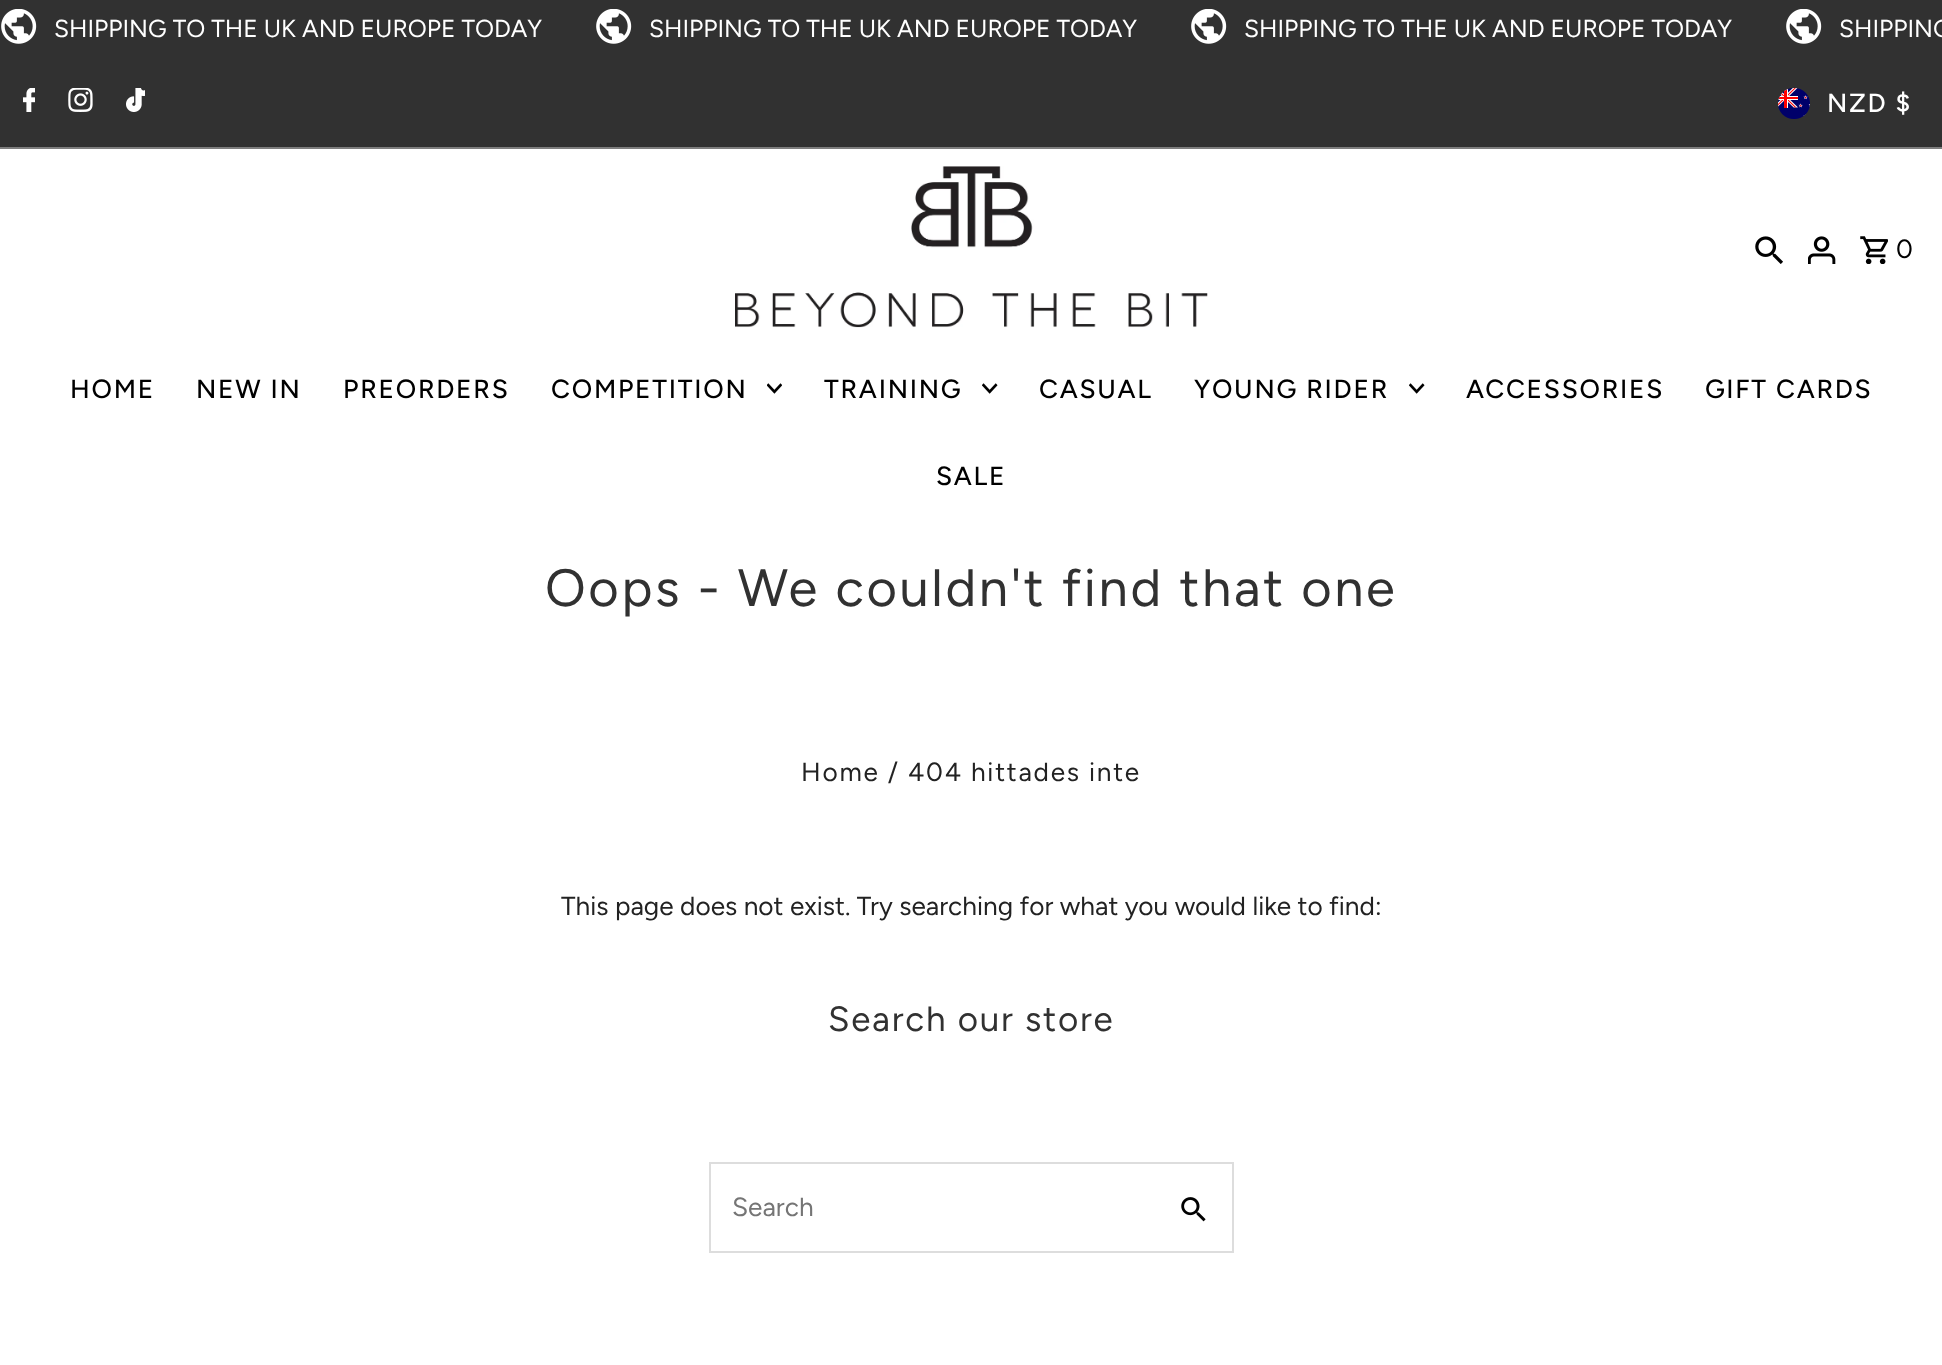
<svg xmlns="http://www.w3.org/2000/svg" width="1942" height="1365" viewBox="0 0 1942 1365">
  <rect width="100%" height="100%" fill="rgb(255,255,255)"/>
  <rect x="0" y="0" width="1942" height="147" fill="rgb(49,49,49)"/>
  <image x="1" y="9" width="36" height="35" href="pic1.png"/>
  <text x="54" y="37" font-family="Figtree" font-size="24.5" fill="rgb(255,255,255)">SHIPPING TO THE UK AND EUROPE TODAY</text>
  <image x="596" y="9" width="36" height="35" href="pic1.png"/>
  <text x="649" y="37" font-family="Figtree" font-size="24.5" fill="rgb(255,255,255)">SHIPPING TO THE UK AND EUROPE TODAY</text>
  <image x="1191" y="9" width="36" height="35" href="pic1.png"/>
  <text x="1244" y="37" font-family="Figtree" font-size="24.5" fill="rgb(255,255,255)">SHIPPING TO THE UK AND EUROPE TODAY</text>
  <image x="1786" y="9" width="36" height="35" href="pic1.png"/>
  <text x="1839" y="37" font-family="Figtree" font-size="24.5" fill="rgb(255,255,255)">SHIPPING</text>
  <rect x="0" y="147" width="1942" height="2" fill="rgb(126,126,126)"/>
  <image x="23" y="88" width="12" height="24" href="pic2.png"/>
  <image x="68" y="88" width="25" height="24" href="pic3.png"/>
  <image x="126" y="88" width="19" height="24" href="pic4.png"/>
  <image x="1778" y="88" width="32" height="31" href="pic5.png"/>
  <text x="1827" y="112" font-family="Figtree" font-size="26.25" font-weight="500" letter-spacing="1.75" fill="rgb(255,255,255)">NZD $</text>
  <image x="735" y="166" width="473" height="162" href="pic6.png"/>
  <image x="1755" y="236" width="28" height="28" href="pic7.png"/>
  <image x="1808" y="236" width="28" height="28" href="pic8.png"/>
  <image x="1860" y="236" width="28" height="28" href="pic9.png"/>
  <text x="1896" y="258" font-family="Figtree" font-size="26.25" letter-spacing="1.75" fill="rgb(0,0,0)">0</text>
  <g font-family="Figtree" font-size="26.25" font-weight="500" letter-spacing="1.75" fill="rgb(0,0,0)">
    <text x="70" y="398">HOME</text>
    <text x="196" y="398">NEW IN</text>
    <text x="343" y="398">PREORDERS</text>
    <text x="551" y="398">COMPETITION</text>
  </g>
  <image x="767" y="383" width="15" height="11" href="pic10.png"/>
  <text x="824" y="398" font-family="Figtree" font-size="26.25" font-weight="500" letter-spacing="1.75" fill="rgb(0,0,0)">TRAINING</text>
  <image x="982" y="383" width="16" height="11" href="pic11.png"/>
  <g font-family="Figtree" font-size="26.25" font-weight="500" letter-spacing="1.75" fill="rgb(0,0,0)">
    <text x="1039" y="398">CASUAL</text>
    <text x="1194" y="398">YOUNG RIDER</text>
  </g>
  <image x="1409" y="383" width="16" height="11" href="pic11.png"/>
  <g font-family="Figtree" font-size="26.25" font-weight="500" letter-spacing="1.75" fill="rgb(0,0,0)">
    <text x="1466" y="398">ACCESSORIES</text>
    <text x="1705" y="398">GIFT CARDS</text>
    <text x="936" y="485">SALE</text>
  </g>
  <text x="545" y="606" font-family="Figtree" font-size="52.5" letter-spacing="2.6" fill="rgb(49,49,49)">Oops - We couldn't find that one</text>
  <text x="801" y="781" font-family="Figtree" font-size="26.25" letter-spacing="1.75" fill="rgb(34,34,34)">Home / 404 hittades inte</text>
  <text x="561" y="915" font-family="Figtree" font-size="26.25" fill="rgb(34,34,34)">This page does not exist. Try searching for what you would like to find:</text>
  <text x="828" y="1031" font-family="Figtree" font-size="35" letter-spacing="1.75" fill="rgb(49,49,49)">Search our store</text>
  <rect x="710" y="1163" width="523" height="89" fill="none" stroke="rgb(221,221,221)" stroke-width="2"/>
  <text x="732" y="1216" font-family="Figtree" font-size="26.25" fill="rgb(117,117,117)">Search</text>
  <image x="1181" y="1197" width="25" height="25" href="pic12.png"/>
</svg>
